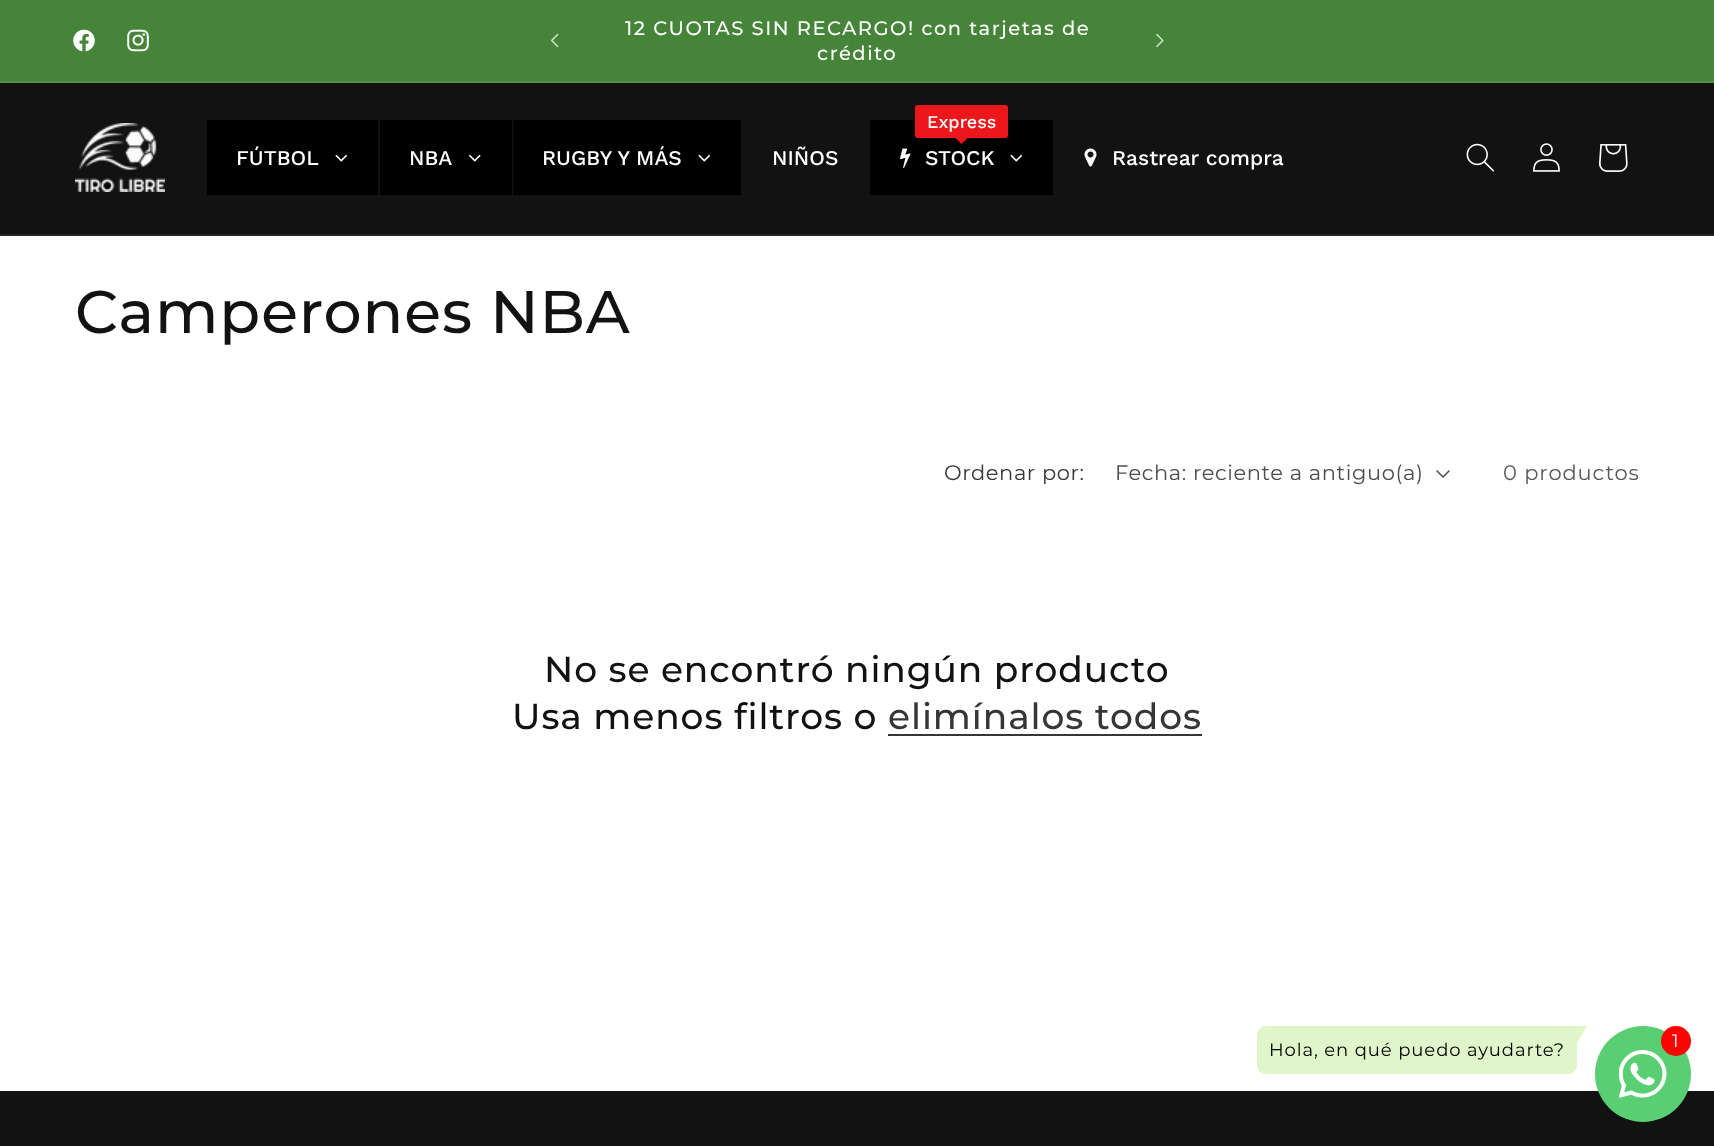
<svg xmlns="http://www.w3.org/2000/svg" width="1714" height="1146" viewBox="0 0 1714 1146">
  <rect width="100%" height="100%" fill="rgb(255,255,255)"/>
  <rect x="0" y="0" width="1714" height="81" fill="rgb(69,132,57)"/>
  <rect x="0" y="81" width="1714" height="2" fill="rgb(84,142,73)"/>
  <image x="73" y="29" width="22" height="23" href="pic1.png"/>
  <image x="127" y="29" width="22" height="23" href="pic2.png"/>
  <image x="551" y="33" width="8" height="15" href="pic3.png"/>
  <g font-family="Montserrat" font-size="19.5" font-weight="500" letter-spacing="1.5" fill="rgb(255,255,255)">
    <text x="625" y="35">12 CUOTAS SIN RECARGO! con tarjetas de</text>
    <text x="817" y="60">crédito</text>
  </g>
  <image x="1156" y="33" width="8" height="15" href="pic4.png"/>
  <rect x="0" y="83" width="1714" height="151" fill="rgb(18,18,18)"/>
  <rect x="0" y="234" width="1714" height="2" fill="rgb(37,37,37)"/>
  <image x="75" y="123" width="90" height="69" href="pic5.png"/>
  <rect x="207" y="120" width="171" height="75" fill="rgb(0,0,0)"/>
  <text x="236" y="165" font-family="Work Sans" font-size="21" font-weight="500" fill="rgb(255,255,255)">FÚTBOL</text>
  <image x="335" y="154" width="12" height="8" href="pic6.png"/>
  <rect x="380" y="120" width="132" height="75" fill="rgb(0,0,0)"/>
  <text x="409" y="165" font-family="Work Sans" font-size="21" font-weight="500" fill="rgb(255,255,255)">NBA</text>
  <image x="469" y="154" width="12" height="8" href="pic7.png"/>
  <rect x="513" y="120" width="228" height="75" fill="rgb(0,0,0)"/>
  <text x="542" y="165" font-family="Work Sans" font-size="21" font-weight="500" fill="rgb(255,255,255)">RUGBY Y MÁS</text>
  <image x="698" y="154" width="12" height="8" href="pic6.png"/>
  <text x="772" y="165" font-family="Work Sans" font-size="21" font-weight="500" fill="rgb(255,255,255)">NIÑOS</text>
  <rect x="870" y="120" width="183" height="75" fill="rgb(0,0,0)"/>
  <image x="900" y="148" width="11" height="20" href="pic8.png"/>
  <rect x="915" y="105" width="93" height="33" rx="3" fill="rgb(235,23,27)"/>
  <text x="927" y="128" font-family="Work Sans" font-size="18" font-weight="500" fill="rgb(255,255,255)">Express</text>
  <path d="M955.5 138H967.5L961.5 144Z" fill="rgb(235,23,27)"/>
  <text x="925" y="165" font-family="Work Sans" font-size="21" font-weight="500" fill="rgb(255,255,255)">STOCK</text>
  <image x="1010" y="154" width="12" height="8" href="pic6.png"/>
  <image x="1084" y="148" width="13" height="19" href="pic9.png"/>
  <text x="1112" y="165" font-family="Work Sans" font-size="21" font-weight="500" fill="rgb(255,255,255)">Rastrear compra</text>
  <image x="1466" y="143" width="28" height="29" href="pic10.png"/>
  <image x="1533" y="143" width="27" height="29" href="pic11.png"/>
  <image x="1599" y="144" width="29" height="28" href="pic12.png"/>
  <text x="75" y="333" font-family="Montserrat" font-size="60" font-weight="500" letter-spacing="0.9" fill="rgb(18,18,18)">Camperones NBA</text>
  <text x="944" y="480" font-family="Montserrat" font-size="21" letter-spacing="0.6" fill="rgb(54,54,54)">Ordenar por:</text>
  <text x="1115" y="480" font-family="Montserrat" font-size="21" letter-spacing="0.6" fill="rgb(77,77,77)">Fecha: reciente a antiguo(a)</text>
  <image x="1436" y="470" width="14" height="8" href="pic13.png"/>
  <text x="1503" y="480" font-family="Montserrat" font-size="21" letter-spacing="0.9" fill="rgb(89,89,89)">0 productos</text>
  <g font-family="Montserrat" font-size="36" font-weight="500" letter-spacing="0.9" fill="rgb(18,18,18)">
    <text x="544" y="682">No se encontró ningún producto</text>
    <text x="512" y="729">Usa menos filtros o</text>
  </g>
  <text x="888" y="729" font-family="Montserrat" font-size="36" font-weight="500" letter-spacing="0.9" fill="rgb(54,54,54)">elimínalos todos</text>
  <rect x="888" y="734" width="314" height="2" fill="rgb(54,54,54)"/>
  <rect x="0" y="1091" width="1714" height="55" fill="rgb(18,18,18)"/>
  <circle cx="1643" cy="1074" r="48" fill="rgb(89,206,114)"/>
  <image x="1619" y="1050" width="48" height="48" href="pic14.png"/>
  <circle cx="1676" cy="1041" r="15" fill="rgb(255,3,3)"/>
  <text x="1672" y="1047" font-family="Montserrat" font-size="18" letter-spacing="0.9" fill="rgb(255,255,255)">1</text>
  <path d="M1266 1026H1577V1065C1577 1070 1573 1074 1568 1074H1266C1261 1074 1257 1070 1257 1065V1035C1257 1030 1261 1026 1266 1026Z" fill="rgb(224,246,202)"/>
  <path d="M1576.5 1026H1587L1576.5 1044Z" fill="rgb(224,246,202)"/>
  <text x="1269" y="1056" font-family="Montserrat" font-size="18" letter-spacing="0.9" fill="rgb(0,0,0)">Hola, en qué puedo ayudarte?</text>
</svg>
